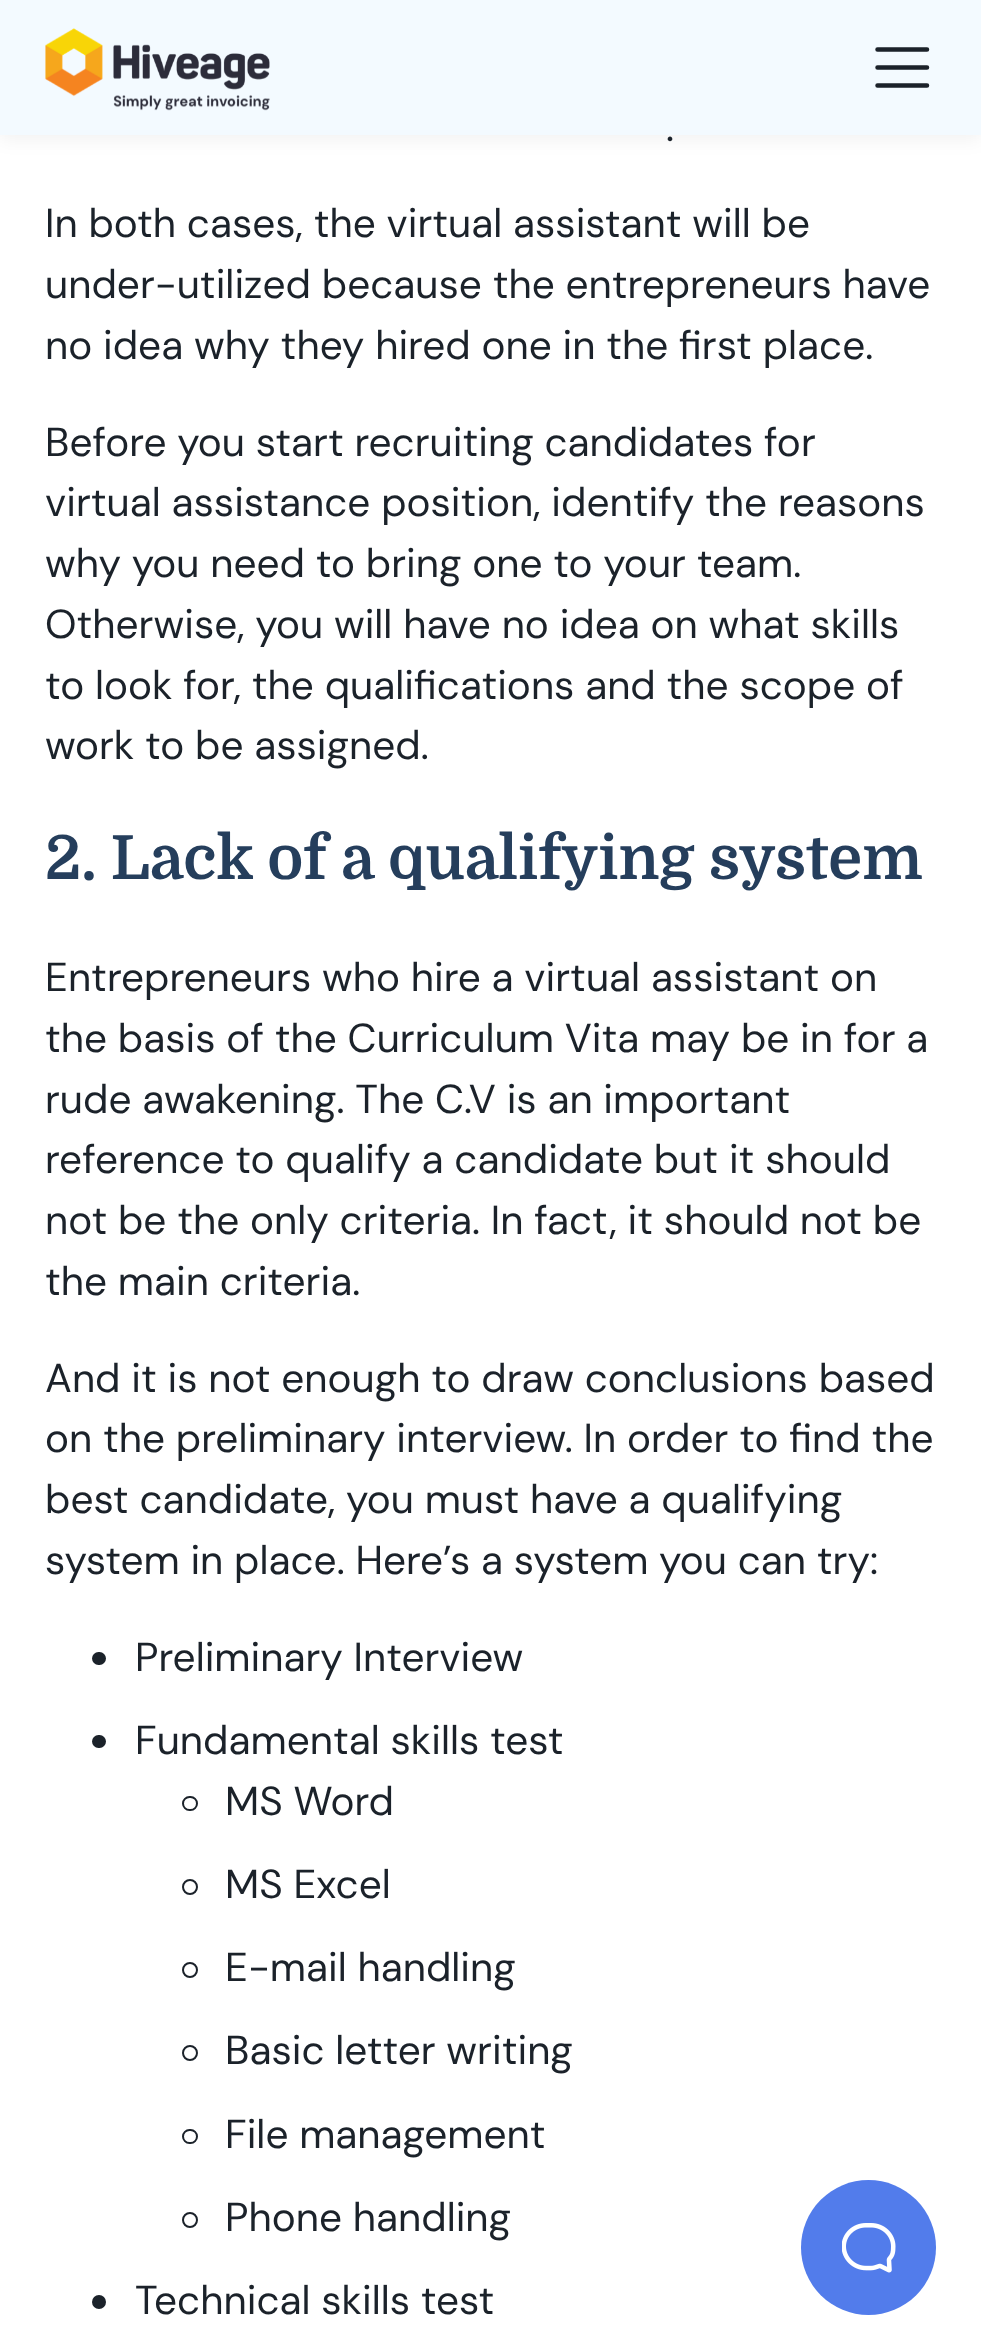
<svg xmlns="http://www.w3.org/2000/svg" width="981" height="2336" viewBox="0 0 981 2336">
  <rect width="100%" height="100%" fill="rgb(255,255,255)"/>
  <rect x="0" y="5" width="981" height="135" fill="rgba(0,0,0,0.05)" filter="blur(9px)"/>
  <rect x="0" y="0" width="981" height="135" fill="rgb(243,250,255)"/>
  <image x="45" y="28" width="225" height="83" href="pic1.png"/>
  <path d="M877.5 49.5H927M877.5 67.5H927M877.5 85.5H927" fill="none" stroke="rgb(27,34,42)" stroke-width="4.5" stroke-linecap="round"/>
  <g font-family="DM Sans" font-size="40.5" fill="rgb(27,34,42)">
    <text x="666" y="141">.</text>
    <text>
      <tspan x="45" y="237">In both cases, the virtual assistant will be</tspan>
      <tspan x="45" y="298">under-utilized because the entrepreneurs have</tspan>
      <tspan x="45" y="359">no idea why they hired one in the first place.</tspan>
    </text>
    <text>
      <tspan x="45" y="456">Before you start recruiting candidates for</tspan>
      <tspan x="45" y="516">virtual assistance position, identify the reasons</tspan>
      <tspan x="45" y="577">why you need to bring one to your team.</tspan>
      <tspan x="45" y="638">Otherwise, you will have no idea on what skills</tspan>
      <tspan x="45" y="699">to look for, the qualifications and the scope of</tspan>
      <tspan x="45" y="759">work to be assigned.</tspan>
    </text>
  </g>
  <text x="45" y="879" font-family="Domine" font-size="60.75" font-weight="bold" fill="rgb(37,62,92)">2. Lack of a qualifying system</text>
  <g font-family="DM Sans" font-size="40.5" fill="rgb(27,34,42)">
    <text>
      <tspan x="45" y="991">Entrepreneurs who hire a virtual assistant on</tspan>
      <tspan x="45" y="1052">the basis of the Curriculum Vita may be in for a</tspan>
      <tspan x="45" y="1113">rude awakening. The C.V is an important</tspan>
      <tspan x="45" y="1173">reference to qualify a candidate but it should</tspan>
      <tspan x="45" y="1234">not be the only criteria. In fact, it should not be</tspan>
      <tspan x="45" y="1295">the main criteria.</tspan>
    </text>
    <text>
      <tspan x="45" y="1392">And it is not enough to draw conclusions based</tspan>
      <tspan x="45" y="1452">on the preliminary interview. In order to find the</tspan>
      <tspan x="45" y="1513">best candidate, you must have a qualifying</tspan>
      <tspan x="45" y="1574">system in place. Here’s a system you can try:</tspan>
    </text>
  </g>
  <rect x="92" y="1652" width="14" height="13" rx="6.5" fill="rgb(27,34,42)"/>
  <text x="135" y="1671" font-family="DM Sans" font-size="40.5" fill="rgb(27,34,42)">Preliminary Interview</text>
  <rect x="92" y="1735" width="14" height="13" rx="6.5" fill="rgb(27,34,42)"/>
  <text x="135" y="1754" font-family="DM Sans" font-size="40.5" fill="rgb(27,34,42)">Fundamental skills test</text>
  <rect x="183" y="1797" width="14" height="13" rx="6.5" fill="none" stroke="rgb(27,34,42)" stroke-width="2"/>
  <text x="225" y="1815" font-family="DM Sans" font-size="40.5" fill="rgb(27,34,42)">MS Word</text>
  <circle cx="190" cy="1887" r="7" fill="none" stroke="rgb(27,34,42)" stroke-width="2"/>
  <text x="225" y="1898" font-family="DM Sans" font-size="40.5" fill="rgb(27,34,42)">MS Excel</text>
  <circle cx="190" cy="1970" r="7" fill="none" stroke="rgb(27,34,42)" stroke-width="2"/>
  <text x="225" y="1981" font-family="DM Sans" font-size="40.5" fill="rgb(27,34,42)">E-mail handling</text>
  <circle cx="190" cy="2053" r="7" fill="none" stroke="rgb(27,34,42)" stroke-width="2"/>
  <text x="225" y="2064" font-family="DM Sans" font-size="40.5" fill="rgb(27,34,42)">Basic letter writing</text>
  <rect x="183" y="2130" width="14" height="13" rx="6.5" fill="none" stroke="rgb(27,34,42)" stroke-width="2"/>
  <text x="225" y="2148" font-family="DM Sans" font-size="40.5" fill="rgb(27,34,42)">File management</text>
  <circle cx="190" cy="2220" r="7" fill="none" stroke="rgb(27,34,42)" stroke-width="2"/>
  <text x="225" y="2231" font-family="DM Sans" font-size="40.5" fill="rgb(27,34,42)">Phone handling</text>
  <circle cx="99" cy="2302" r="7" fill="rgb(27,34,42)"/>
  <text x="135" y="2314" font-family="DM Sans" font-size="40.5" fill="rgb(27,34,42)">Technical skills test</text>
  <circle cx="868.5" cy="2247.5" r="67.5" fill="rgb(82,124,235)"/>
  <image x="842" y="2223" width="54" height="50" href="pic2.png"/>
</svg>
